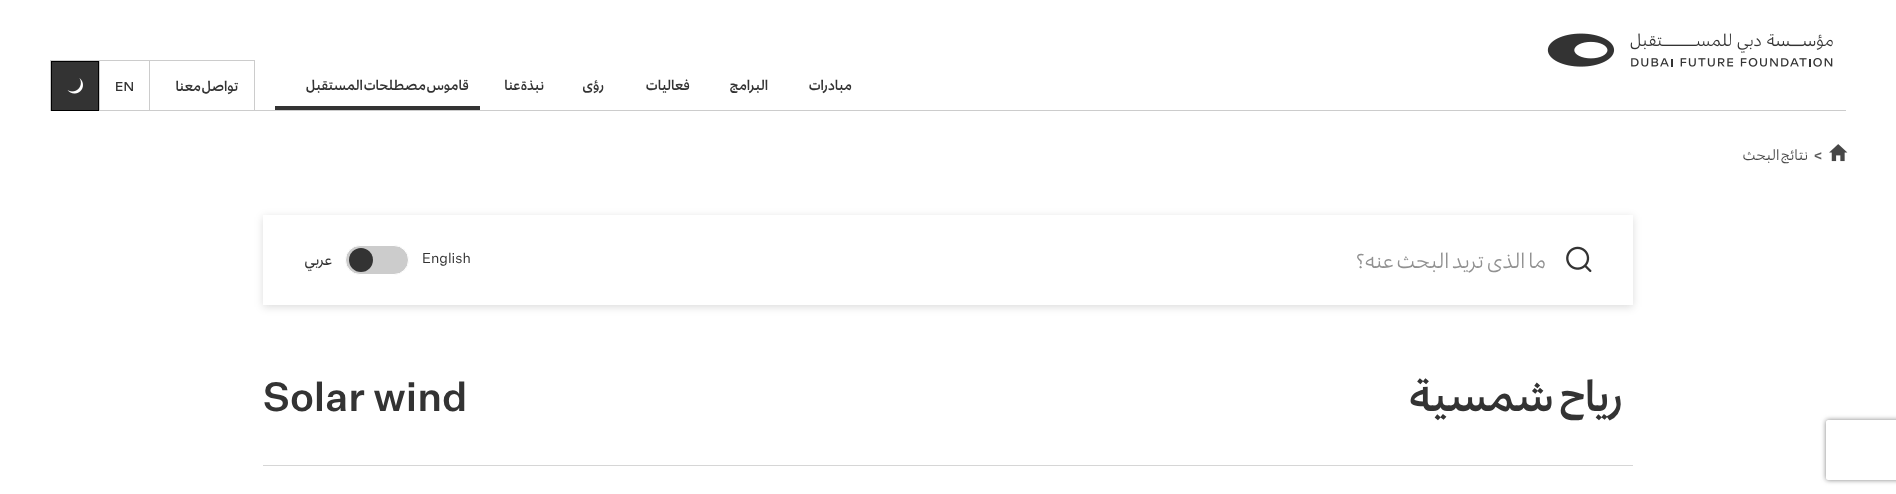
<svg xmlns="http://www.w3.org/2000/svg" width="1896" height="494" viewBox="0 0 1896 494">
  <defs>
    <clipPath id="clip1"><path d="M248 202H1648V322H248ZM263 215H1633V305H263Z" clip-rule="evenodd"/></clipPath>
    <clipPath id="clip2"><rect x="493" y="247" width="1053" height="26"/></clipPath>
    <clipPath id="clip3"><path d="M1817 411H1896V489H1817ZM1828 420H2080C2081 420 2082 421 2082 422V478C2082 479 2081 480 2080 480H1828C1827 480 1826 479 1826 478V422C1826 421 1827 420 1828 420Z" clip-rule="evenodd"/></clipPath>
  </defs>
  <rect width="100%" height="100%" fill="rgb(255,255,255)"/>
  <rect x="100" y="110" width="1746" height="1" fill="rgb(204,204,204)"/>
  <image x="1547" y="33" width="286" height="34" href="pic1.png"/>
  <g font-family="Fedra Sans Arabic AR" font-size="13" font-weight="600" letter-spacing="0.5" direction="rtl" fill="rgb(51,51,51)">
    <text x="852" y="90">مبادرات</text>
    <text x="768" y="90">البرامج</text>
    <text x="690" y="90">فعاليات</text>
    <text x="604" y="90">رؤى</text>
    <text x="544" y="90" word-spacing="-1">نبذة عنا</text>
    <text x="469" y="90" word-spacing="-1">قاموس مصطلحات المستقبل</text>
  </g>
  <rect x="275" y="106" width="205" height="4" fill="rgb(51,51,51)"/>
  <rect x="50" y="60" width="205" height="1" fill="rgb(204,204,204)"/>
  <rect x="254" y="60" width="1" height="50" fill="rgb(204,204,204)"/>
  <text x="238" y="91" word-spacing="-1" font-family="Fedra Sans Arabic AR" font-size="13" font-weight="600" letter-spacing="0.5" direction="rtl" fill="rgb(51,51,51)">تواصل معنا</text>
  <rect x="149" y="60" width="1" height="51" fill="rgb(204,204,204)"/>
  <text x="115" y="91" font-family="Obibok" font-size="13" font-weight="600" letter-spacing="0.5" fill="rgb(51,51,51)">EN</text>
  <rect x="99" y="60" width="1" height="51" fill="rgb(204,204,204)"/>
  <rect x="50" y="60" width="1" height="51" fill="rgb(204,204,204)"/>
  <rect x="51.5" y="61.5" width="47" height="49" fill="rgb(51,51,51)" stroke="rgb(0,0,0)"/>
  <image x="67" y="78" width="16" height="16" href="pic2.png"/>
  <image x="1829" y="144" width="19" height="18" href="pic3.png"/>
  <text x="1826" y="160" transform="rotate(-90 1826 160)" font-family="Fedra Sans Arabic AR" font-size="16" font-weight="500" letter-spacing="0.25" fill="rgb(92,92,92)">^</text>
  <text x="1808" y="160" word-spacing="-1" font-family="Fedra Sans Arabic AR" font-size="14" letter-spacing="0.25" direction="rtl" fill="rgb(71,71,71)">نتائج البحث</text>
  <g clip-path="url(#clip1)">
    <rect x="263" y="217" width="1370" height="90" fill="rgba(0,0,0,0.14)" filter="blur(4.5px)"/>
  </g>
  <image x="1566" y="246" width="26" height="27" href="pic4.png"/>
  <g clip-path="url(#clip2)">
    <text x="1546" y="268" font-family="Fedra Sans Arabic AR" font-size="20" direction="rtl" fill="rgb(145,145,145)">ما الذي تريد البحث عنه؟</text>
  </g>
  <text x="422" y="263" font-family="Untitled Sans" font-size="14" fill="rgb(51,51,51)">English</text>
  <rect x="345.5" y="245.5" width="63" height="29" rx="14.5" fill="rgb(204,204,204)" stroke="rgb(255,255,255)"/>
  <circle cx="361" cy="260" r="12" fill="rgb(51,51,51)"/>
  <text x="332" y="265" font-family="Fedra Sans Arabic AR" font-size="14" font-weight="500" direction="rtl" fill="rgb(51,51,51)">عربي</text>
  <text x="1623" y="411" font-family="Fedra Sans Arabic AR" font-size="40" font-weight="600" direction="rtl" fill="rgb(51,51,51)">رياح شمسية</text>
  <text x="263" y="411" font-family="Untitled Sans" font-size="40" font-weight="500" fill="rgb(51,51,51)">Solar wind</text>
  <rect x="263" y="465" width="1370" height="1" fill="rgb(214,214,214)"/>
  <g clip-path="url(#clip3)">
    <rect x="1826" y="420" width="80" height="60" rx="2" fill="rgb(128,128,128)" filter="blur(2.5px)"/>
  </g>
</svg>
